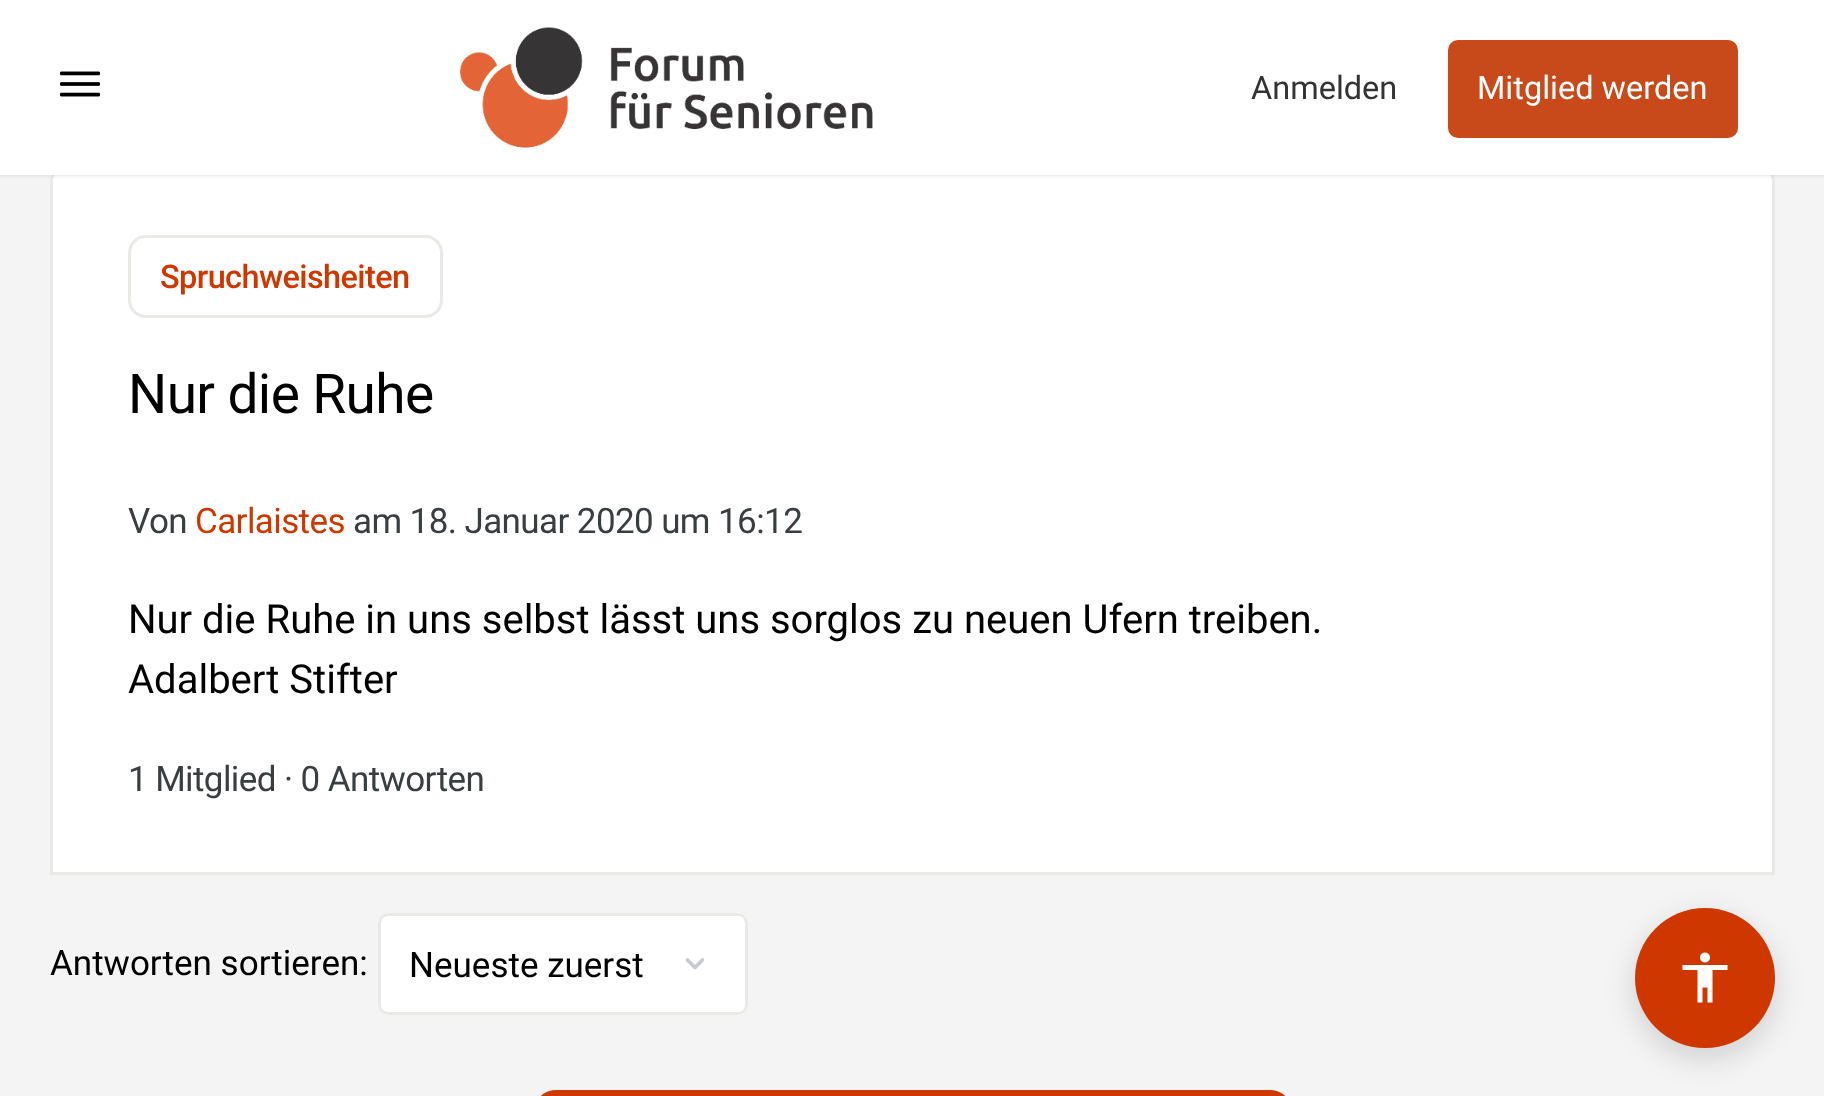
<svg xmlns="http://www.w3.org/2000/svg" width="1824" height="1096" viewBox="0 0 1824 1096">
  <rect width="100%" height="100%" fill="rgb(244,244,244)"/>
  <path d="M60 171.5H1765C1769.5 171.5 1773.5 175.5 1773.5 180V873.5H51.5V180C51.5 175.5 55.5 171.5 60 171.5Z" fill="rgb(255,255,255)" stroke="rgb(235,233,230)" stroke-width="3"/>
  <rect x="0" y="0" width="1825" height="175" fill="rgba(65,71,108,0.15)" filter="blur(1px)"/>
  <rect x="0" y="175" width="1824" height="3" fill="rgba(139,141,157,0.05)"/>
  <rect x="0" y="0" width="1824" height="175" fill="rgb(255,255,255)"/>
  <image x="60" y="71" width="40" height="26" href="pic1.png"/>
  <image x="460" y="27" width="413" height="121" href="pic2.png"/>
  <text x="1251" y="99" font-family="Roboto" font-size="32.5" fill="rgb(51,51,51)">Anmelden</text>
  <rect x="1448" y="40" width="290" height="98" rx="10" fill="rgb(200,74,26)"/>
  <text x="1477" y="99" font-family="Roboto" font-size="32.5" fill="rgb(255,255,255)">Mitglied werden</text>
  <rect x="129.5" y="236.5" width="312" height="80" rx="16.5" fill="none" stroke="rgb(235,233,230)" stroke-width="3"/>
  <text x="160" y="288" font-family="Roboto" font-size="32.5" font-weight="500" letter-spacing="-0.6" fill="rgb(207,55,0)">Spruchweisheiten</text>
  <text x="128" y="413" font-family="Roboto" font-size="55" letter-spacing="-0.6" fill="rgb(0,0,0)">Nur die Ruhe</text>
  <text x="128" y="533" font-family="Roboto" font-size="35" letter-spacing="-0.6" fill="rgb(57,62,65)">Von</text>
  <text x="195" y="533" font-family="Roboto" font-size="35" letter-spacing="-0.6" fill="rgb(207,55,0)">Carlaistes</text>
  <text x="353" y="533" font-family="Roboto" font-size="35" letter-spacing="-0.6" fill="rgb(57,62,65)">am 18. Januar 2020 um 16:12</text>
  <g font-family="Roboto" font-size="40" fill="rgb(0,0,0)">
    <text>
      <tspan x="128" y="633">Nur die Ruhe in uns selbst lässt uns sorglos zu neuen Ufern treiben.</tspan>
      <tspan x="128" y="693">Adalbert Stifter</tspan>
    </text>
  </g>
  <text x="128" y="791" font-family="Roboto" font-size="35" letter-spacing="-0.6" fill="rgb(57,62,65)">1 Mitglied · 0 Antworten</text>
  <text x="50" y="975" font-family="Roboto" font-size="35" fill="rgb(0,0,0)">Antworten sortieren:</text>
  <rect x="378" y="913" width="370" height="102" rx="10" fill="rgb(255,255,255)"/>
  <path d="M702.5 960L695 967.5L687.5 960" fill="none" stroke="rgb(196,202,209)" stroke-width="3.8" stroke-linecap="round" stroke-linejoin="round"/>
  <rect x="379.5" y="914.5" width="367" height="99" rx="8.5" fill="none" stroke="rgb(235,233,230)" stroke-width="3"/>
  <text x="409" y="977" font-family="Roboto" font-size="35" fill="rgb(0,0,0)">Neueste zuerst</text>
  <rect x="539.5" y="1091.5" width="747" height="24" rx="16.5" fill="rgb(207,55,0)" stroke="rgb(207,55,0)" stroke-width="3"/>
  <rect x="1635" y="918" width="140" height="140" rx="70" fill="rgba(0,0,0,0.15)" filter="blur(15px)"/>
  <circle cx="1705" cy="978" r="70" fill="rgb(207,55,0)"/>
  <image x="1682" y="952" width="46" height="51" href="pic3.png"/>
</svg>
